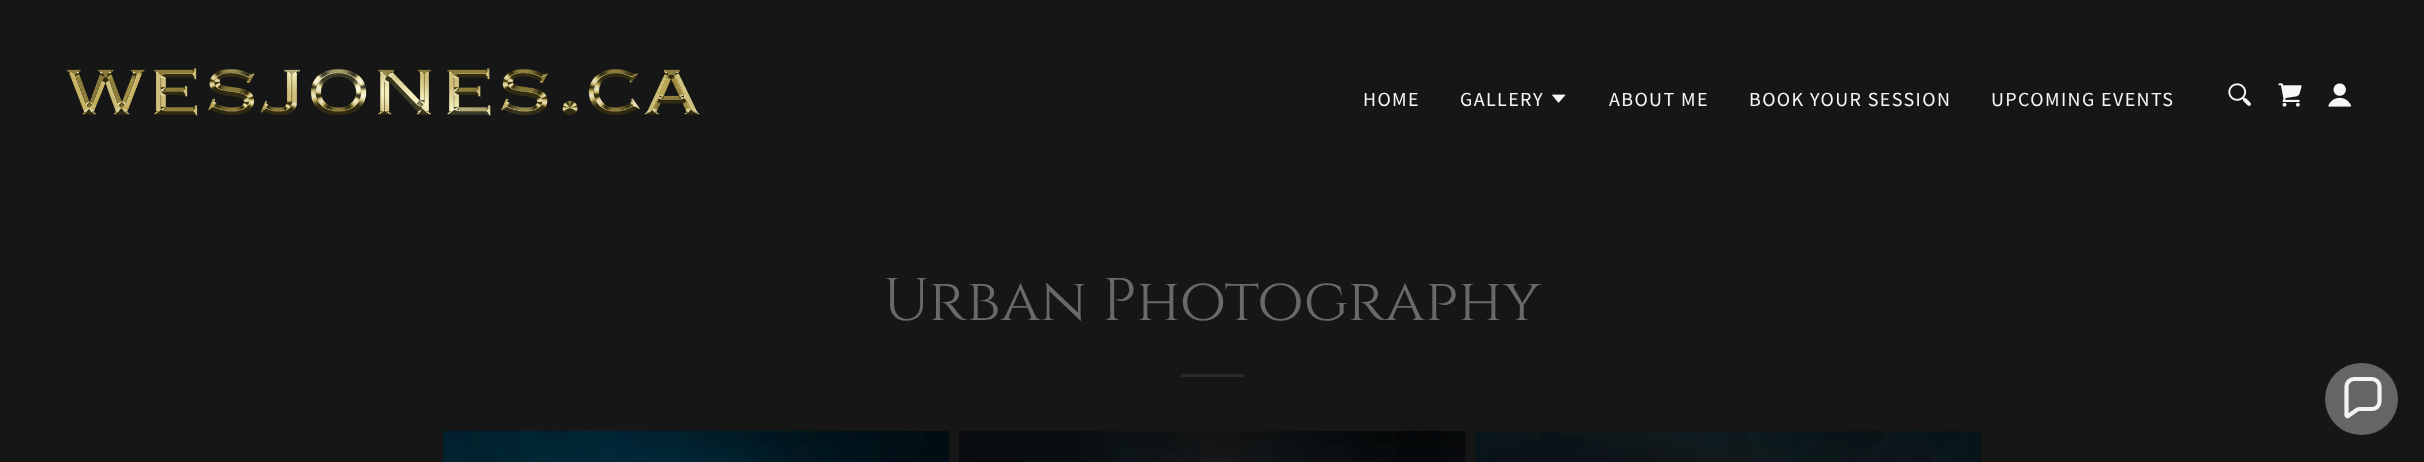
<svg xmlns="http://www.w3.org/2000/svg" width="2424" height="462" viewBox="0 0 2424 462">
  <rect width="100%" height="100%" fill="rgb(22,22,22)"/>
  <image x="67" y="68" width="633" height="48" href="pic1.png"/>
  <g font-family="Source Sans Pro" font-size="20" letter-spacing="1.4" fill="rgb(247,247,247)">
    <text x="1363" y="106">HOME</text>
    <text x="1460" y="106">GALLERY</text>
  </g>
  <image x="1552" y="94" width="14" height="9" href="pic2.png"/>
  <g font-family="Source Sans Pro" font-size="20" letter-spacing="1.4" fill="rgb(247,247,247)">
    <text x="1609" y="106">ABOUT ME</text>
    <text x="1749" y="106">BOOK YOUR SESSION</text>
    <text x="1991" y="106">UPCOMING EVENTS</text>
  </g>
  <image x="2228" y="83" width="23" height="23" href="pic3.png"/>
  <image x="2278" y="83" width="24" height="24" href="pic4.png"/>
  <image x="2328" y="83" width="24" height="24" href="pic5.png"/>
  <text x="883" y="320" font-family="Cinzel" font-size="60" fill="rgb(105,105,105)">Urban Photography</text>
  <rect x="1181" y="374" width="63" height="3" fill="rgb(42,42,42)"/>
  <image x="443" y="431" width="506" height="31" href="pic6.png"/>
  <image x="959" y="431" width="507" height="31" href="pic7.png"/>
  <image x="1475" y="431" width="507" height="31" href="pic8.png"/>
  <rect x="2325" y="363" width="73" height="72" rx="36" fill="rgb(101,101,101)"/>
  <path d="M2372 379H2354C2350 379 2346.5 382.5 2346.5 386.5V415.5C2346.5 416 2347.5 416.5 2348 416L2356 410.5C2357 409.5 2358.5 409 2359.5 409H2372C2376 409 2379.5 406 2379.5 401.5V386.5C2379.5 382.5 2376 379 2372 379Z" fill="none" stroke="rgb(243,243,243)" stroke-width="4.2"/>
</svg>
